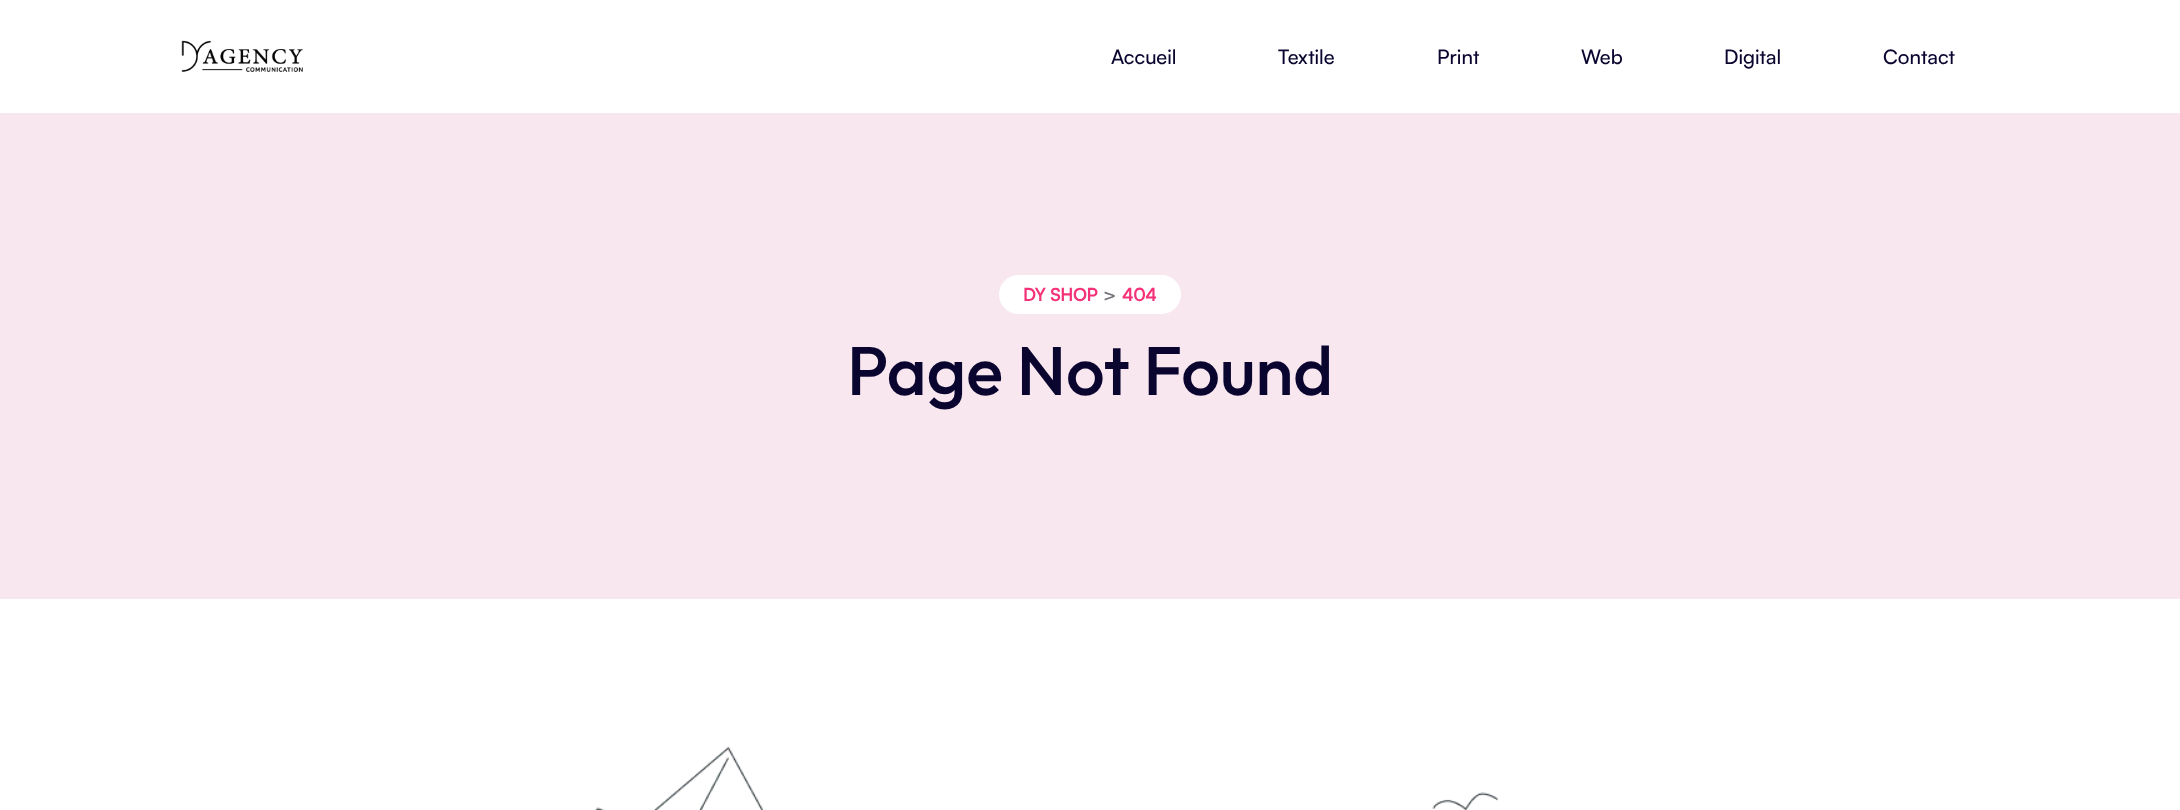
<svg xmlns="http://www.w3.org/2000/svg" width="2180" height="810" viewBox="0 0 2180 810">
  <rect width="100%" height="100%" fill="rgb(255,255,255)"/>
  <image x="181" y="40" width="122" height="32" href="pic1.png"/>
  <g font-family="Satoshi" font-size="20" font-weight="500" fill="rgb(9,5,47)">
    <text x="1111" y="64">Accueil</text>
    <text x="1278" y="64">Textile</text>
    <text x="1437" y="64">Print</text>
    <text x="1581" y="64">Web</text>
    <text x="1724" y="64">Digital</text>
    <text x="1883" y="64">Contact</text>
  </g>
  <rect x="0" y="113" width="2180" height="486" fill="rgb(248,231,239)"/>
  <rect x="999" y="275" width="182" height="39" rx="19.5" fill="rgb(255,255,255)"/>
  <text x="1023" y="301" font-family="Satoshi" font-size="17.5" font-weight="bold" fill="rgb(244,50,120)">DY SHOP</text>
  <text x="1103" y="301" font-family="Satoshi" font-size="20" font-weight="500" fill="rgb(114,116,124)">&gt;</text>
  <text x="1122" y="301" font-family="Satoshi" font-size="17.5" font-weight="bold" fill="rgb(244,50,120)">404</text>
  <text x="847" y="395" font-family="Outfit" font-size="68.75" font-weight="500" fill="rgb(9,5,47)">Page Not Found</text>
  <image x="595" y="746" width="904" height="64" href="pic2.png"/>
</svg>
